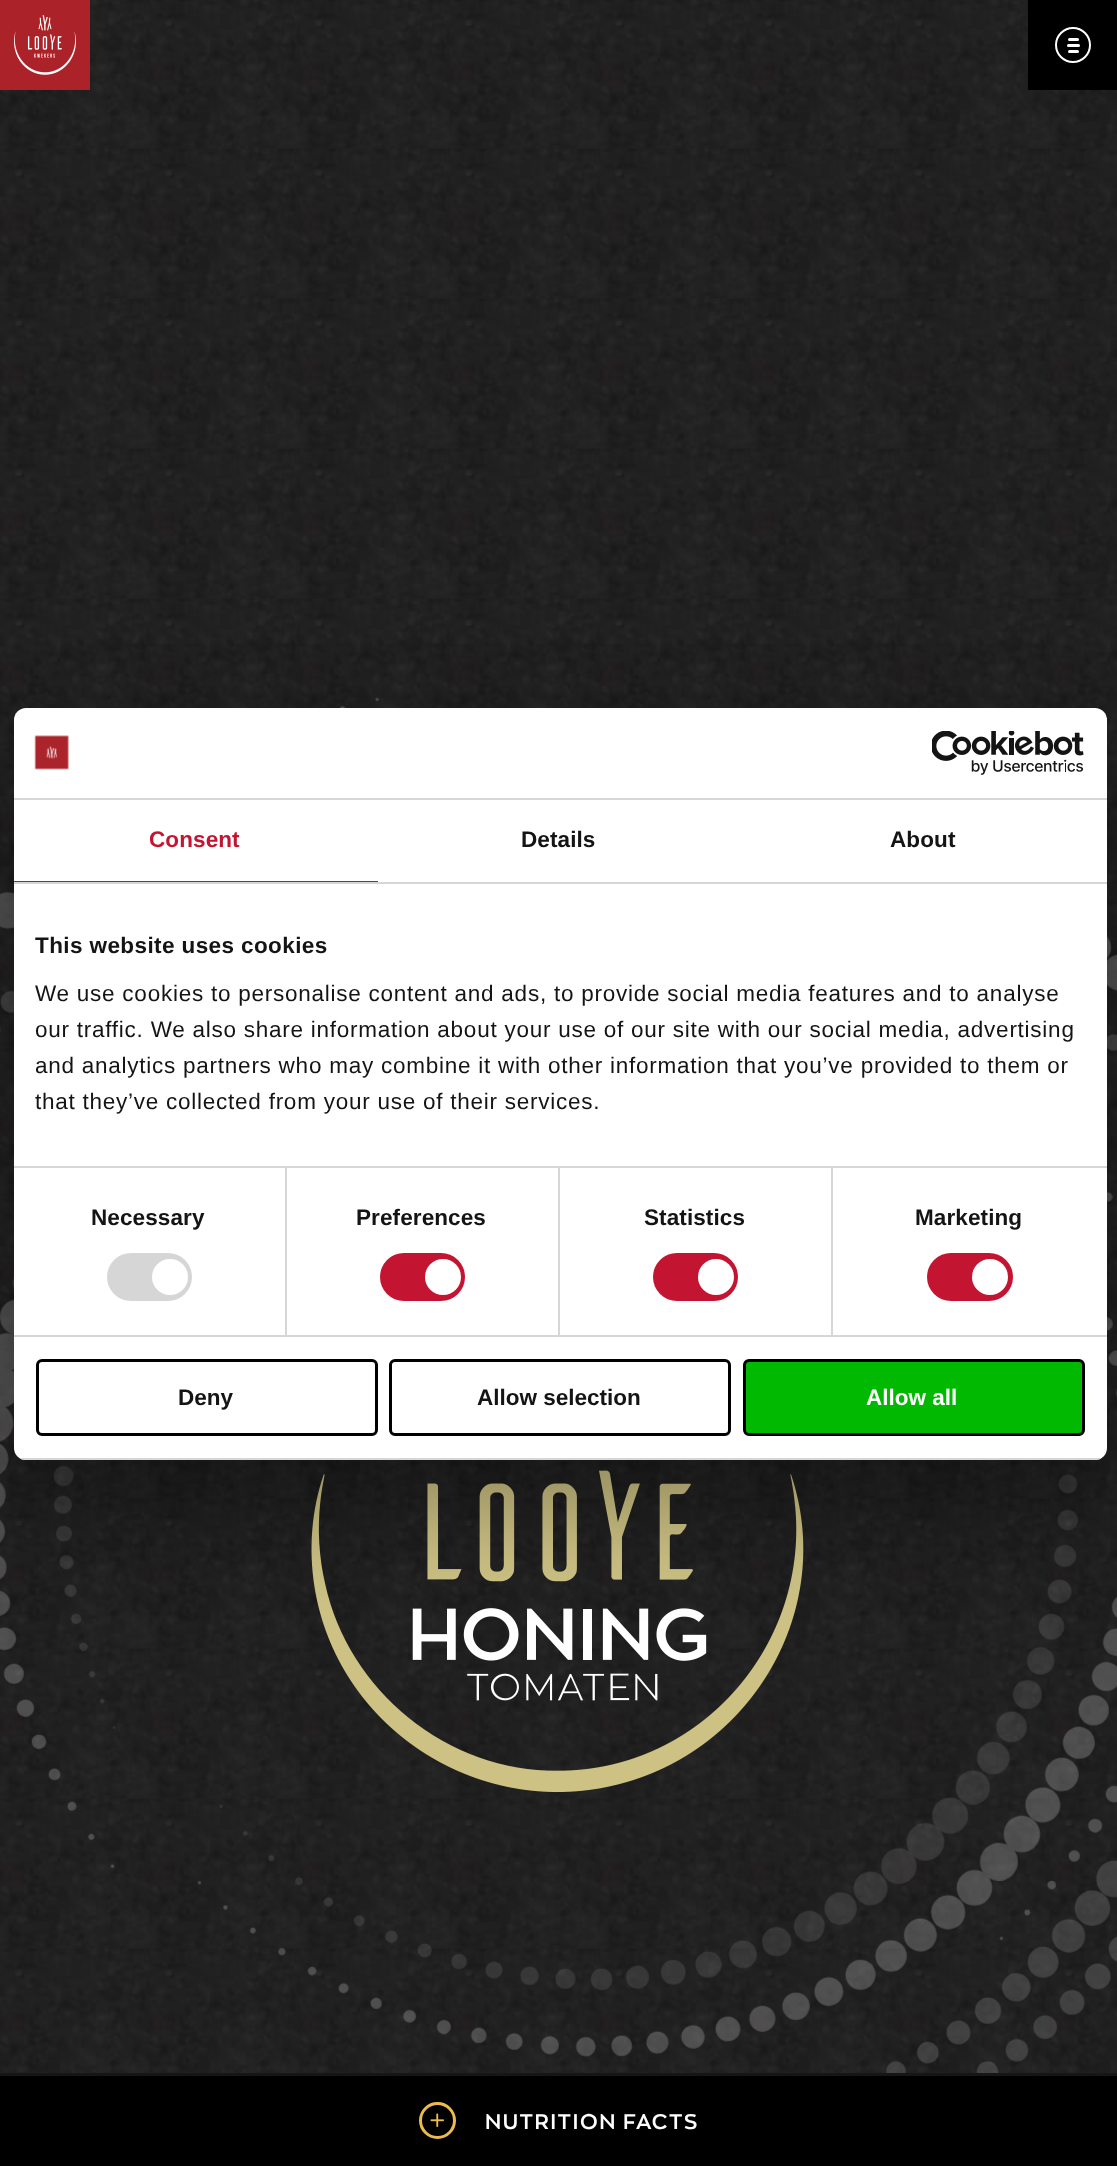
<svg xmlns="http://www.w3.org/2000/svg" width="1117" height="2166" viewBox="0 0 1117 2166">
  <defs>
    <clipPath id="clip1"><rect x="14" y="708" width="1093" height="752" rx="12"/></clipPath>
  </defs>
  <rect width="100%" height="100%" fill="rgb(255,255,255)"/>
  <image x="0" y="0" width="1117" height="2073" href="pic4.png"/>
  <image x="0" y="697" width="1117" height="1376" href="pic5.png"/>
  <image x="311" y="1470" width="493" height="323" href="pic6.png"/>
  <rect x="14" y="756" width="1093" height="752" rx="12" fill="rgba(0,0,0,0.3)" filter="blur(51px)"/>
  <rect x="14" y="708" width="1093" height="752" rx="12" fill="rgb(255,255,255)"/>
  <rect x="14" y="798" width="1093" height="2" fill="rgb(214,214,214)"/>
  <image x="34" y="735" width="35" height="35" href="pic1.png"/>
  <image x="932" y="731" width="152" height="44" href="pic2.png"/>
  <rect x="14" y="882" width="1093" height="2" fill="rgb(214,214,214)"/>
  <rect x="14" y="881" width="364" height="1" fill="rgb(195,21,49)"/>
  <text x="149" y="847" font-family="Liberation Sans" font-size="22.5" font-weight="bold" letter-spacing="0.1" fill="rgb(195,21,49)">Consent</text>
  <g font-family="Liberation Sans" font-size="22.5" font-weight="bold" letter-spacing="0.1" fill="rgb(20,20,20)">
    <text x="521" y="847">Details</text>
    <text x="890" y="847">About</text>
  </g>
  <rect x="285" y="1167" width="2" height="168" fill="rgb(214,214,214)"/>
  <rect x="558" y="1167" width="2" height="168" fill="rgb(214,214,214)"/>
  <rect x="831" y="1167" width="2" height="168" fill="rgb(214,214,214)"/>
  <rect x="14" y="1166" width="1093" height="2" fill="rgb(214,214,214)"/>
  <text x="35" y="953" font-family="Liberation Sans" font-size="22.5" font-weight="bold" letter-spacing="0.4" fill="rgb(20,20,20)">This website uses cookies</text>
  <g font-family="Liberation Sans" font-size="22.5" letter-spacing="0.75" fill="rgb(20,20,20)">
    <text>
      <tspan x="35" y="1001">We use cookies to personalise content and ads, to provide social media features and to analyse</tspan>
      <tspan x="35" y="1037">our traffic. We also share information about your use of our site with our social media, advertising</tspan>
      <tspan x="35" y="1073">and analytics partners who may combine it with other information that you’ve provided to them or</tspan>
      <tspan x="35" y="1109">that they’ve collected from your use of their services.</tspan>
    </text>
  </g>
  <rect x="14" y="1335" width="1093" height="2" fill="rgb(214,214,214)"/>
  <text x="91" y="1225" font-family="Liberation Sans" font-size="22.5" font-weight="bold" letter-spacing="0.1" fill="rgb(20,20,20)">Necessary</text>
  <rect x="107" y="1253" width="85" height="48" rx="24" fill="rgb(214,214,214)"/>
  <circle cx="170" cy="1277" r="18" fill="rgb(255,255,255)"/>
  <text x="356" y="1225" font-family="Liberation Sans" font-size="22.5" font-weight="bold" letter-spacing="0.1" fill="rgb(20,20,20)">Preferences</text>
  <rect x="380" y="1253" width="85" height="48" rx="24" fill="rgb(195,21,49)"/>
  <circle cx="443" cy="1277" r="18" fill="rgb(255,255,255)"/>
  <text x="644" y="1225" font-family="Liberation Sans" font-size="22.5" font-weight="bold" letter-spacing="0.1" fill="rgb(20,20,20)">Statistics</text>
  <rect x="653" y="1253" width="85" height="48" rx="24" fill="rgb(195,21,49)"/>
  <circle cx="716" cy="1277" r="18" fill="rgb(255,255,255)"/>
  <text x="915" y="1225" font-family="Liberation Sans" font-size="22.5" font-weight="bold" letter-spacing="0.1" fill="rgb(20,20,20)">Marketing</text>
  <rect x="927" y="1253" width="86" height="48" rx="24" fill="rgb(195,21,49)"/>
  <circle cx="990" cy="1277" r="18" fill="rgb(255,255,255)"/>
  <g clip-path="url(#clip1)">
    <rect x="14" y="1458" width="1093" height="2" fill="rgb(214,214,214)"/>
  </g>
  <rect x="37.5" y="1360.5" width="339" height="74" rx="4.5" fill="none" stroke="rgb(0,0,0)" stroke-width="3"/>
  <text x="178" y="1405" font-family="Liberation Sans" font-size="22.5" font-weight="bold" fill="rgb(20,20,20)">Deny</text>
  <rect x="390.5" y="1360.5" width="339" height="74" rx="4.5" fill="none" stroke="rgb(0,0,0)" stroke-width="3"/>
  <text x="477" y="1405" font-family="Liberation Sans" font-size="22.5" font-weight="bold" fill="rgb(20,20,20)">Allow selection</text>
  <rect x="744.5" y="1360.5" width="339" height="74" rx="4.5" fill="rgb(0,185,0)" stroke="rgb(0,0,0)" stroke-width="3"/>
  <text x="866" y="1405" font-family="Liberation Sans" font-size="22.5" font-weight="bold" fill="rgb(255,255,255)">Allow all</text>
  <rect x="0" y="0" width="90" height="90" fill="rgb(171,35,40)"/>
  <image x="14" y="15" width="62" height="60" href="pic3.png"/>
  <rect x="1028" y="0" width="89" height="90" fill="rgb(0,0,0)"/>
  <rect x="1067" y="44" width="13" height="3" rx="1.5" fill="rgb(255,255,255)"/>
  <rect x="1068" y="38" width="11" height="3" rx="1.5" fill="rgb(255,255,255)"/>
  <rect x="1068" y="50" width="11" height="3" rx="1.5" fill="rgb(255,255,255)"/>
  <circle cx="1073" cy="45" r="17" fill="none" stroke="rgb(255,255,255)" stroke-width="2"/>
  <rect x="0" y="2076" width="1117" height="90" fill="rgb(0,0,0)"/>
  <rect x="0" y="2073" width="1117" height="3" fill="rgb(22,22,22)"/>
  <circle cx="437.5" cy="2120.5" r="17" fill="none" stroke="rgb(235,187,78)" stroke-width="3"/>
  <image x="430" y="2113" width="14" height="14" href="pic7.png"/>
  <text x="485" y="2129" font-family="'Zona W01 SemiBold'" font-size="21" font-weight="600" letter-spacing="1.5" fill="rgb(255,255,255)">NUTRITION FACTS</text>
</svg>
